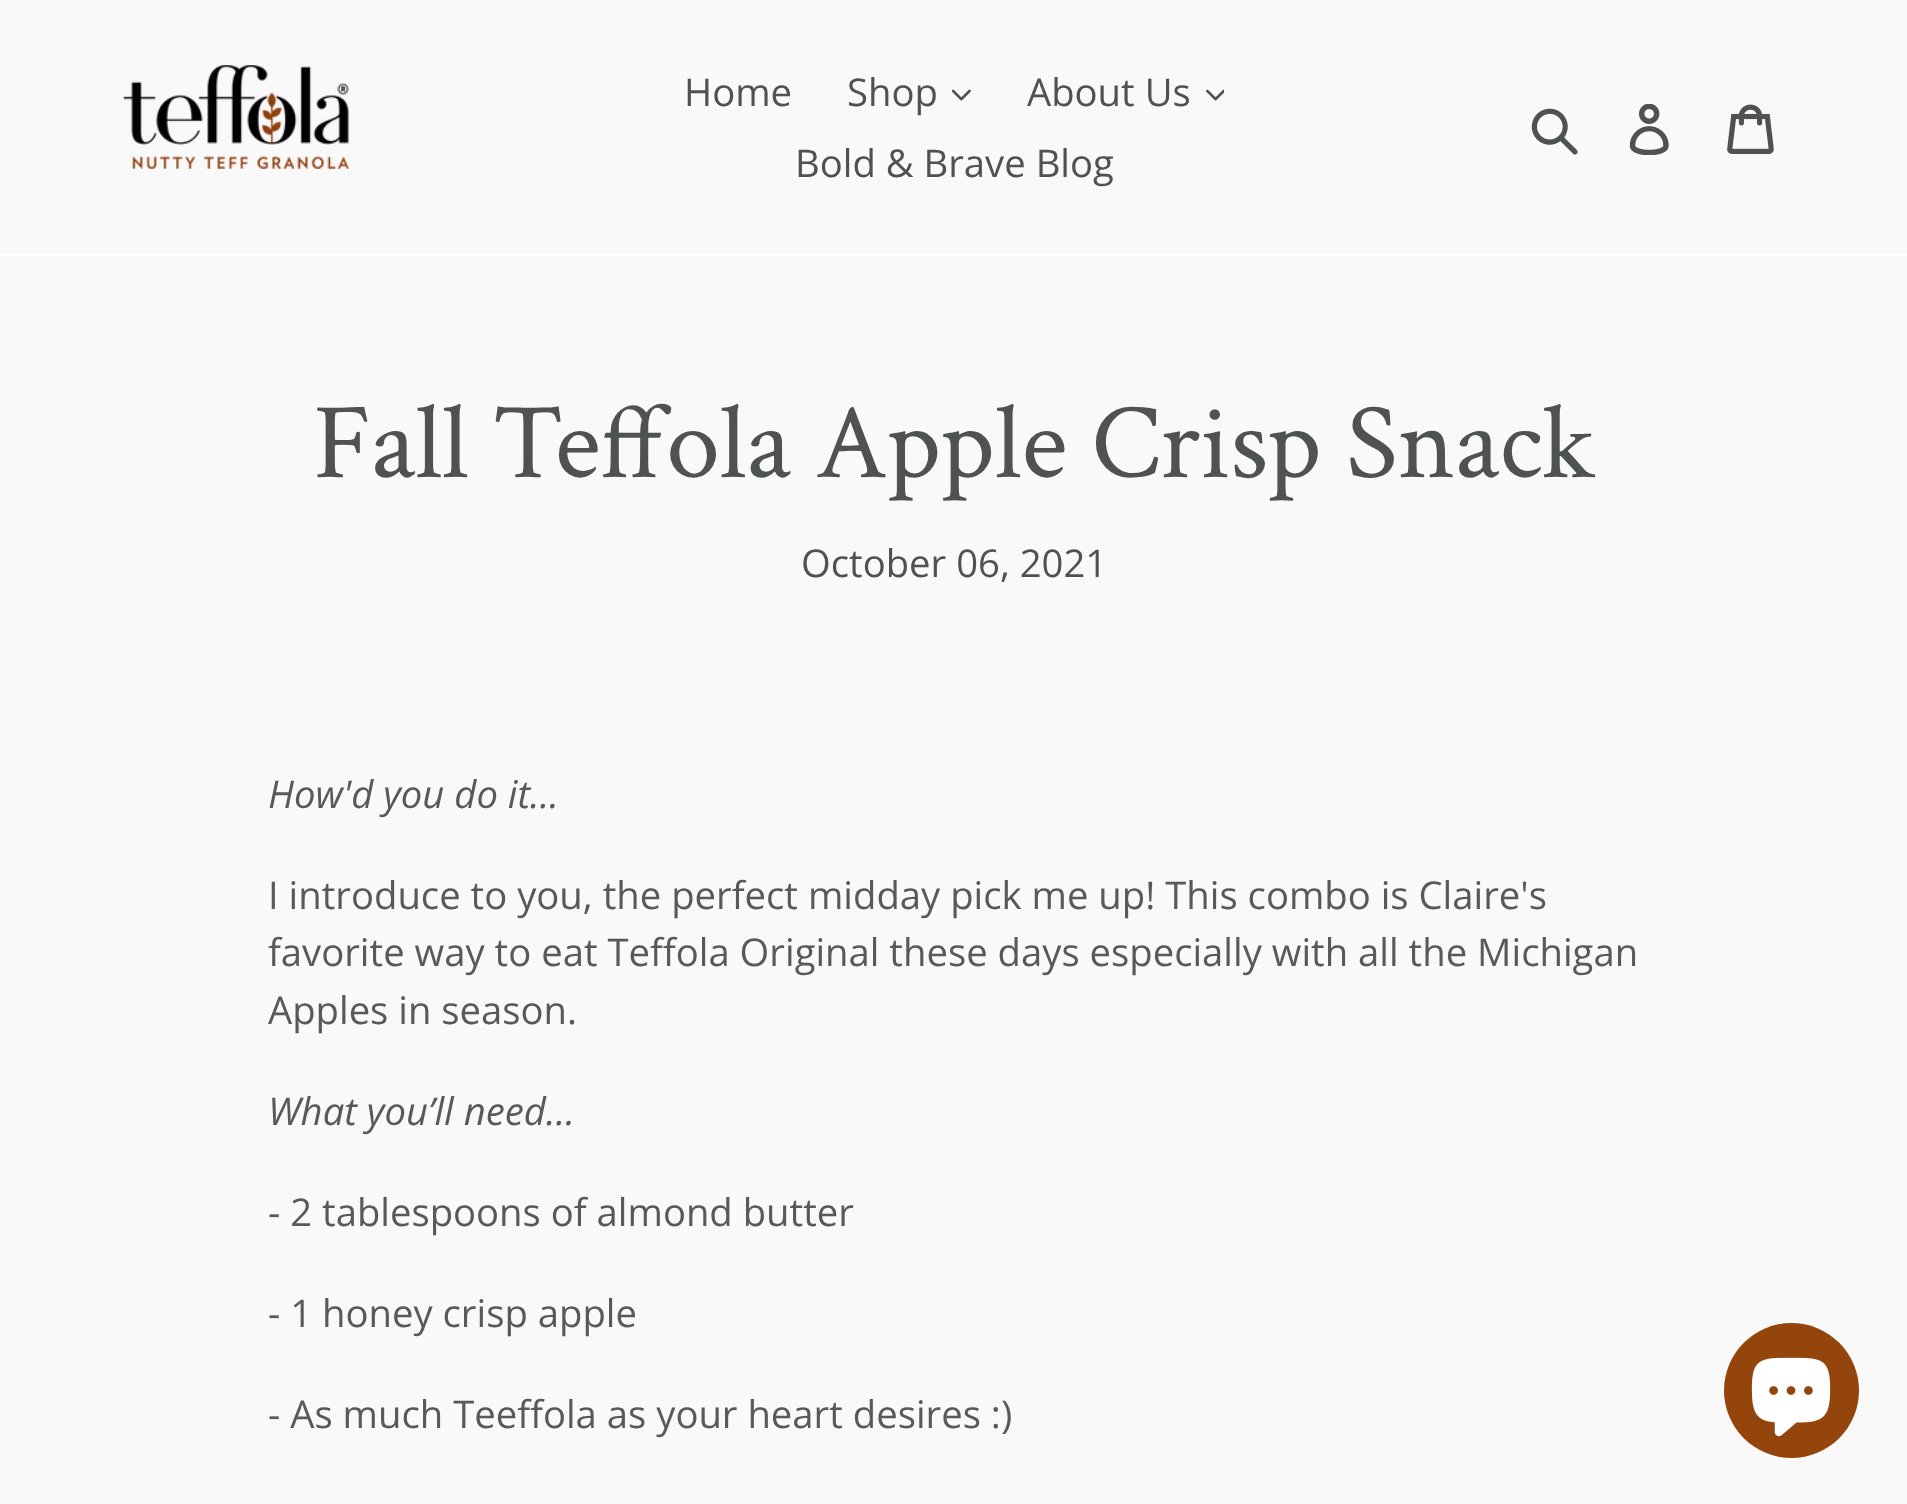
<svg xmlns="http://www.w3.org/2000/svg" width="1907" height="1504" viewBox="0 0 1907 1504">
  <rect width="100%" height="100%" fill="rgb(249,249,249)"/>
  <rect x="0" y="254" width="1907" height="2" fill="rgb(255,255,255)"/>
  <image x="123" y="65" width="226" height="104" href="pic1.png"/>
  <g font-family="Open Sans" font-size="38.25" fill="rgb(78,82,81)">
    <text x="684" y="106">Home</text>
    <text x="847" y="106">Shop</text>
  </g>
  <image x="952" y="89" width="19" height="12" href="pic2.png"/>
  <text x="1027" y="106" font-family="Open Sans" font-size="38.25" fill="rgb(78,82,81)">About Us</text>
  <image x="1206" y="89" width="18" height="12" href="pic3.png"/>
  <text x="795" y="177" font-family="Open Sans" font-size="38.25" fill="rgb(78,82,81)">Bold &amp; Brave Blog</text>
  <image x="1531" y="108" width="47" height="47" href="pic4.png"/>
  <image x="1629" y="104" width="40" height="51" href="pic5.png"/>
  <image x="1727" y="104" width="47" height="50" href="pic6.png"/>
  <text x="313" y="477" font-family="Crimson Text" font-size="108" fill="rgb(78,82,81)">Fall Teffola Apple Crisp Snack</text>
  <text x="801" y="577" font-family="Open Sans" font-size="38.25" fill="rgb(78,82,81)">October 06, 2021</text>
  <text x="268" y="808" font-family="Open Sans" font-size="38.25" font-style="italic" fill="rgb(88,89,91)">How'd you do it...</text>
  <g font-family="Open Sans" font-size="38.25" fill="rgb(88,89,91)">
    <text>
      <tspan x="268" y="909">I introduce to you, the perfect midday pick me up! This combo is Claire's</tspan>
      <tspan x="268" y="966">favorite way to eat Teffola Original these days especially with all the Michigan</tspan>
      <tspan x="268" y="1024">Apples in season.</tspan>
    </text>
  </g>
  <text x="268" y="1125" font-family="Open Sans" font-size="38.25" font-style="italic" fill="rgb(88,89,91)">What you’ll need…</text>
  <g font-family="Open Sans" font-size="38.25" fill="rgb(88,89,91)">
    <text x="268" y="1226">- 2 tablespoons of almond butter</text>
    <text x="268" y="1327">- 1 honey crisp apple</text>
    <text x="268" y="1428">- As much Teeffola as your heart desires :)</text>
  </g>
  <circle cx="1791.5" cy="1390.5" r="67.5" fill="rgb(148,69,11)"/>
  <image x="1751" y="1357" width="80" height="80" href="pic7.png"/>
</svg>
